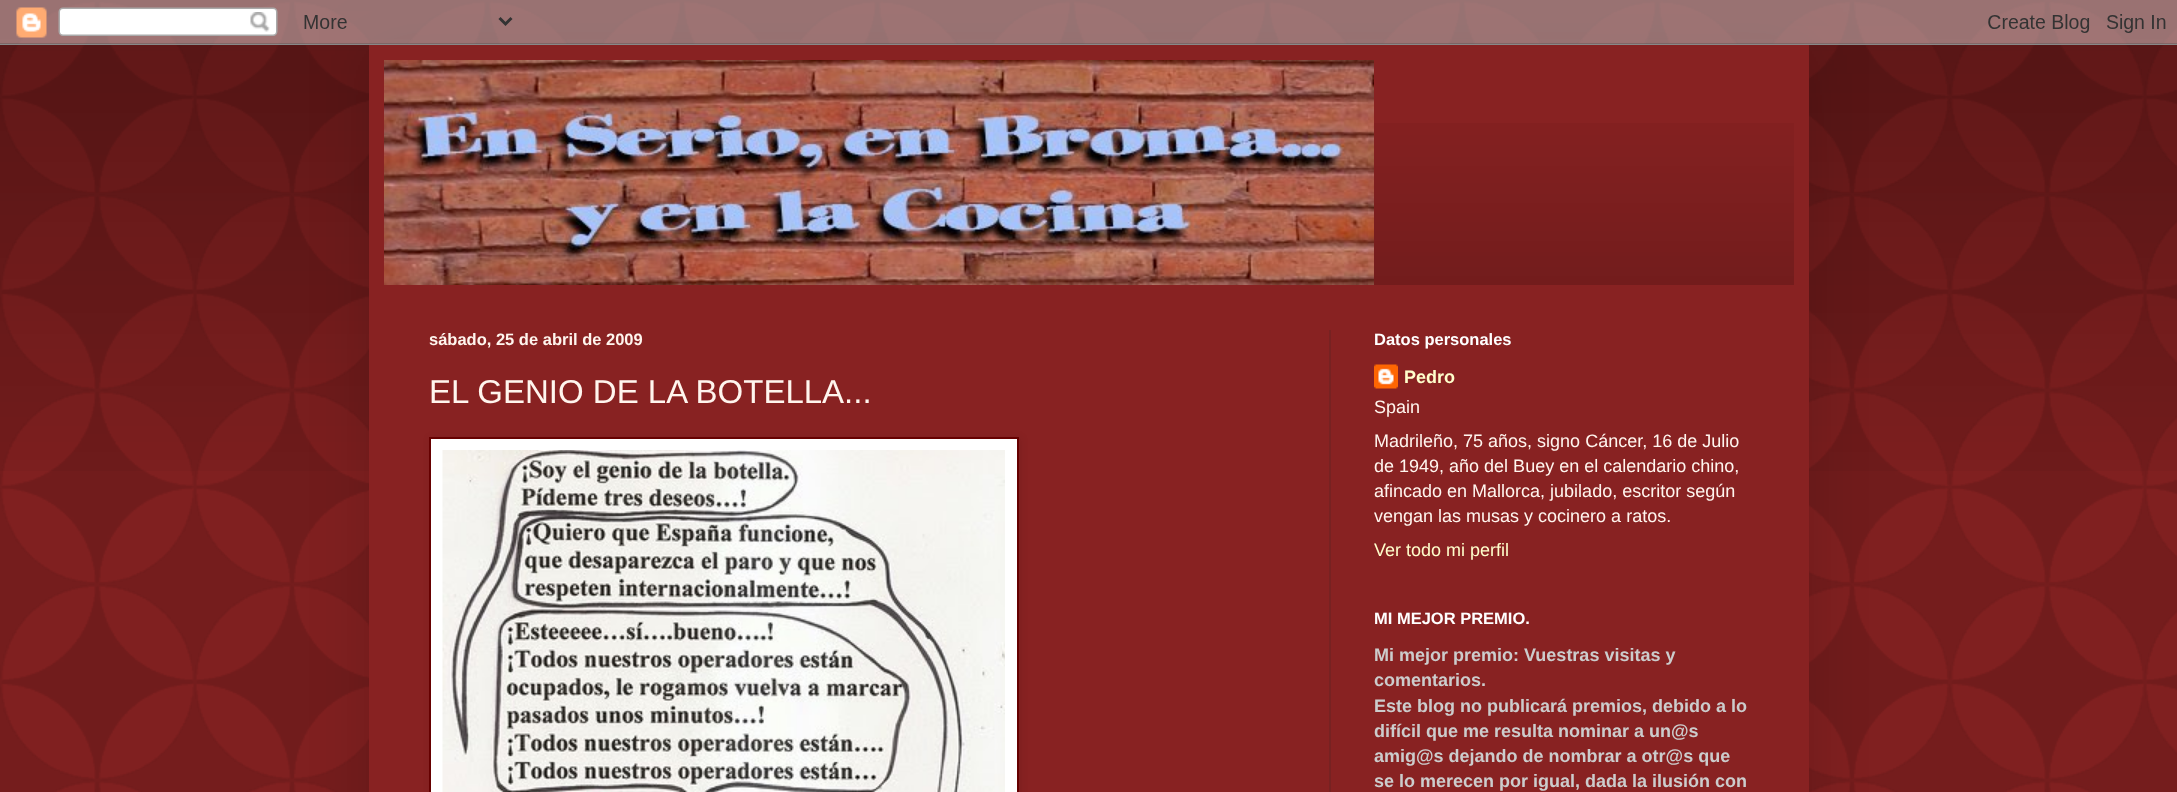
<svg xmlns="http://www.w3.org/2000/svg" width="2177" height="792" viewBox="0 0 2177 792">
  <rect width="100%" height="100%" fill="rgb(136,34,34)"/>
  <image x="0" y="0" width="2177" height="792" href="pic1.png"/>
  <image x="0" y="0" width="2177" height="471" href="pic2.png"/>
  <rect x="369" y="45" width="1440" height="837" fill="rgba(0,0,0,0.15)" filter="blur(30px)"/>
  <image x="0" y="0" width="2177" height="45" href="pic3.png"/>
  <rect x="369" y="45" width="1440" height="747" fill="rgb(136,34,34)"/>
  <image x="1374" y="123" width="420" height="162" href="pic4.png"/>
  <image x="384" y="60" width="990" height="225" href="pic5.png"/>
  <rect x="1329" y="330" width="2" height="462" fill="rgb(119,34,34)"/>
  <text x="429" y="345" font-family="Liberation Sans" font-size="16.5" font-weight="bold" fill="rgb(255,245,238)">sábado, 25 de abril de 2009</text>
  <text x="429" y="403" font-family="Liberation Sans" font-size="33" fill="rgb(255,245,238)">EL GENIO DE LA BOTELLA...</text>
  <rect x="431" y="438" width="589" height="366" fill="rgba(0,0,0,0.1)" filter="blur(4px)"/>
  <rect x="430" y="438" width="588" height="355" fill="rgb(255,255,255)" stroke="rgb(102,0,0)" stroke-width="2"/>
  <image x="442" y="450" width="563" height="342" href="pic6.png"/>
  <text x="1374" y="345" font-family="Liberation Sans" font-size="16.5" font-weight="bold" fill="rgb(255,255,255)">Datos personales</text>
  <image x="1374" y="364" width="24" height="25" href="pic7.png"/>
  <text x="1404" y="383" font-family="Liberation Sans" font-size="18" font-weight="bold" fill="rgb(255,255,204)">Pedro</text>
  <g font-family="Liberation Sans" font-size="18" fill="rgb(255,245,238)">
    <text>
      <tspan x="1374" y="413">Spain</tspan>
      <tspan x="1374" y="447">Madrileño, 75 años, signo Cáncer, 16 de Julio</tspan>
      <tspan x="1374" y="472">de 1949, año del Buey en el calendario chino,</tspan>
      <tspan x="1374" y="497">afincado en Mallorca, jubilado, escritor según</tspan>
      <tspan x="1374" y="522">vengan las musas y cocinero a ratos.</tspan>
    </text>
  </g>
  <text x="1374" y="556" font-family="Liberation Sans" font-size="18" fill="rgb(255,255,204)">Ver todo mi perfil</text>
  <text x="1374" y="624" font-family="Liberation Sans" font-size="16.5" font-weight="bold" fill="rgb(255,255,255)">MI MEJOR PREMIO.</text>
  <g font-family="Liberation Sans" font-size="18" font-weight="bold" fill="rgb(204,204,204)">
    <text>
      <tspan x="1374" y="661">Mi mejor premio: Vuestras visitas y</tspan>
      <tspan x="1374" y="686">comentarios.</tspan>
      <tspan x="1374" y="712">Este blog no publicará premios, debido a lo</tspan>
      <tspan x="1374" y="737">difícil que me resulta nominar a un@s</tspan>
      <tspan x="1374" y="762">amig@s dejando de nombrar a otr@s que</tspan>
      <tspan x="1374" y="787">se lo merecen por igual, dada la ilusión con</tspan>
    </text>
  </g>
</svg>
